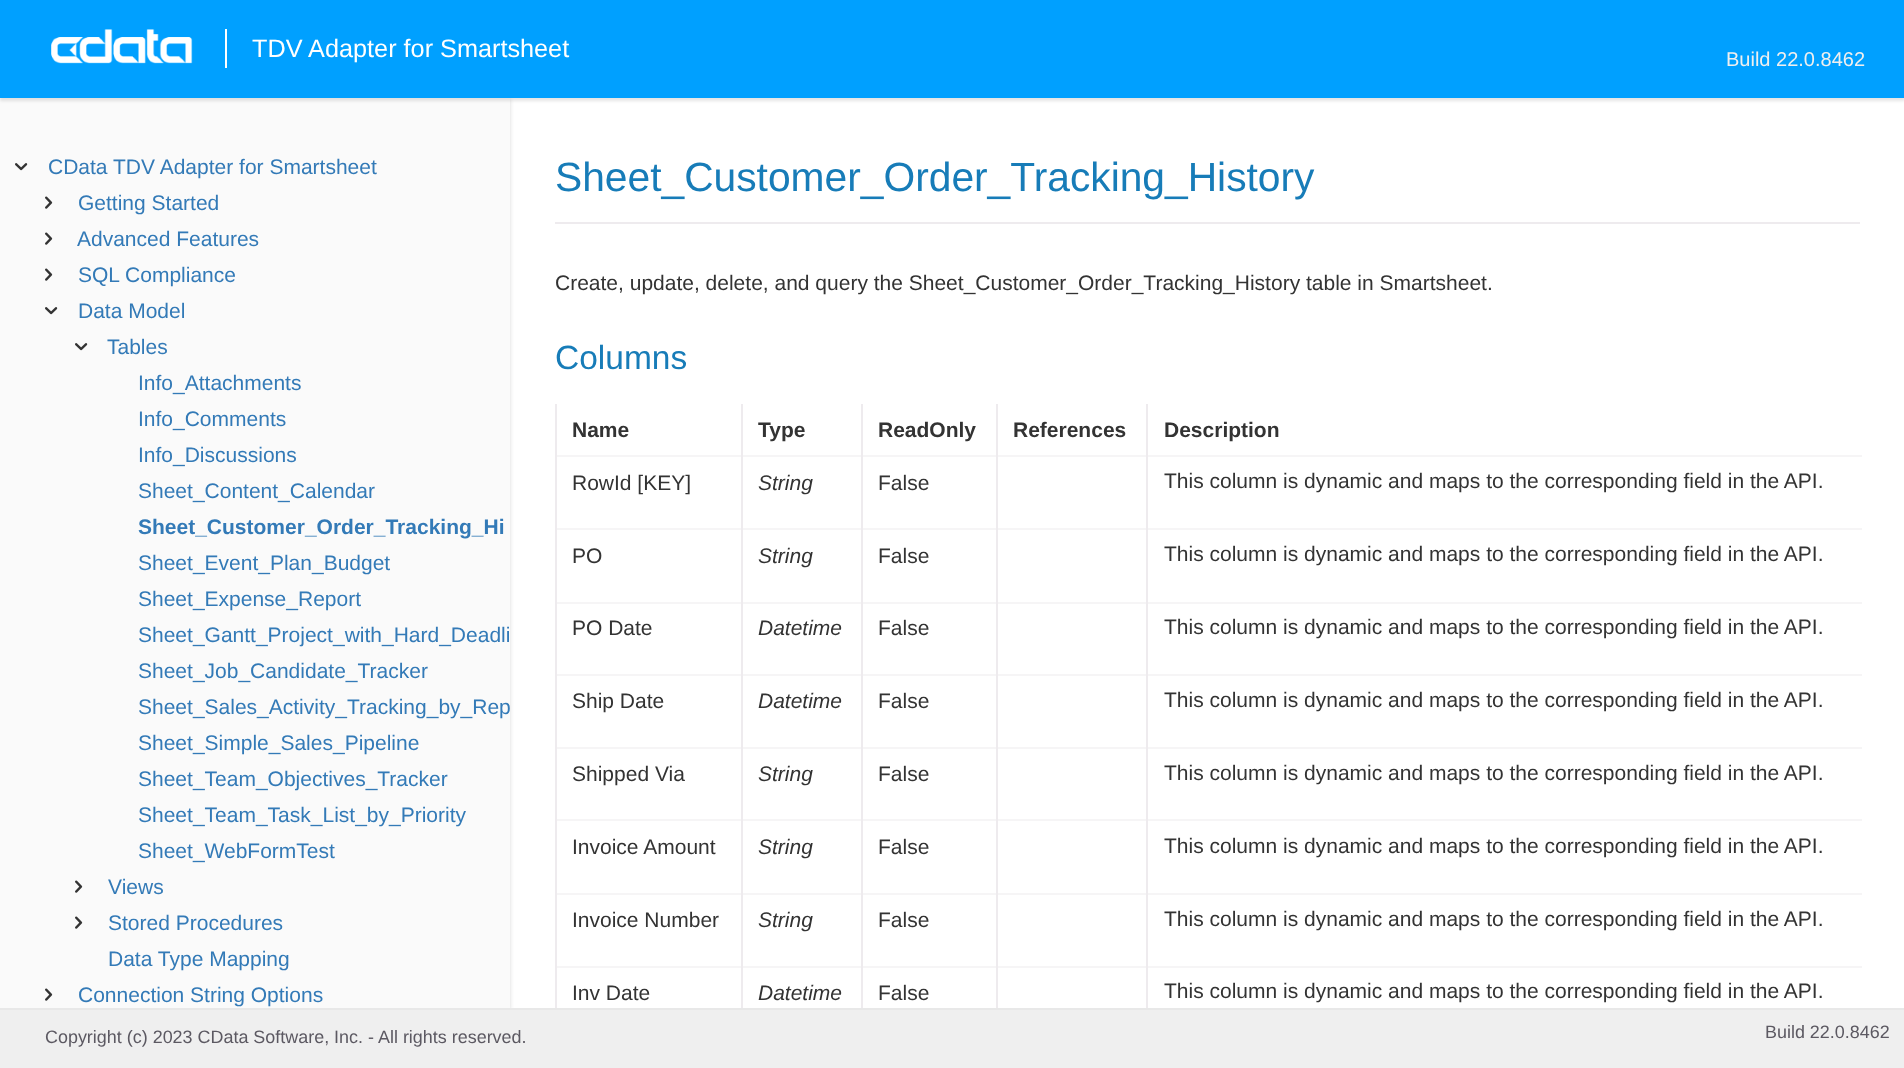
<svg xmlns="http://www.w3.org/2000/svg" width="1904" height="1068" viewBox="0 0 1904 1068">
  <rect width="100%" height="100%" fill="rgb(255,255,255)"/>
  <rect x="0" y="99" width="510" height="911" fill="rgba(0,0,0,0.15)" filter="blur(2px)"/>
  <rect x="0" y="98" width="510" height="910" fill="rgb(250,250,250)"/>
  <rect x="0" y="3" width="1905" height="98" fill="rgba(0,0,0,0.1)" filter="blur(1.5px)"/>
  <rect x="0" y="0" width="1904" height="98" fill="rgb(0,160,255)"/>
  <image x="51" y="29" width="142" height="35" href="pic1.png"/>
  <rect x="225" y="29" width="2" height="39" fill="rgb(255,255,255)"/>
  <text x="252" y="57" font-family="Liberation Sans" font-size="25.25" fill="rgb(255,255,255)">TDV Adapter for Smartsheet</text>
  <text x="1726" y="66" font-family="Liberation Sans" font-size="20" fill="rgb(239,239,239)">Build 22.0.8462</text>
  <image x="15" y="163" width="13" height="8" href="pic2.png"/>
  <text x="48" y="174" font-family="Liberation Sans" font-size="21" fill="rgb(51,122,183)">CData TDV Adapter for Smartsheet</text>
  <image x="45" y="196" width="8" height="13" href="pic3.png"/>
  <text x="78" y="210" font-family="Liberation Sans" font-size="21" fill="rgb(51,122,183)">Getting Started</text>
  <image x="45" y="232" width="8" height="13" href="pic3.png"/>
  <text x="77" y="246" font-family="Liberation Sans" font-size="21" fill="rgb(51,122,183)">Advanced Features</text>
  <image x="45" y="268" width="8" height="13" href="pic3.png"/>
  <text x="78" y="282" font-family="Liberation Sans" font-size="21" fill="rgb(51,122,183)">SQL Compliance</text>
  <image x="45" y="307" width="13" height="8" href="pic2.png"/>
  <text x="78" y="318" font-family="Liberation Sans" font-size="21" fill="rgb(51,122,183)">Data Model</text>
  <image x="75" y="343" width="13" height="8" href="pic2.png"/>
  <g font-family="Liberation Sans" font-size="21" fill="rgb(51,122,183)">
    <text x="107" y="354">Tables</text>
    <text>
      <tspan x="138" y="390">Info_Attachments</tspan>
      <tspan x="138" y="426">Info_Comments</tspan>
      <tspan x="138" y="462">Info_Discussions</tspan>
      <tspan x="138" y="498">Sheet_Content_Calendar</tspan>
    </text>
  </g>
  <text x="138" y="534" font-family="Liberation Sans" font-size="21" font-weight="bold" fill="rgb(51,122,183)">Sheet_Customer_Order_Tracking_Hi</text>
  <g font-family="Liberation Sans" font-size="21" fill="rgb(51,122,183)">
    <text>
      <tspan x="138" y="570">Sheet_Event_Plan_Budget</tspan>
      <tspan x="138" y="606">Sheet_Expense_Report</tspan>
      <tspan x="138" y="642">Sheet_Gantt_Project_with_Hard_Deadli</tspan>
      <tspan x="138" y="678">Sheet_Job_Candidate_Tracker</tspan>
      <tspan x="138" y="714">Sheet_Sales_Activity_Tracking_by_Rep</tspan>
      <tspan x="138" y="750">Sheet_Simple_Sales_Pipeline</tspan>
      <tspan x="138" y="786">Sheet_Team_Objectives_Tracker</tspan>
      <tspan x="138" y="822">Sheet_Team_Task_List_by_Priority</tspan>
      <tspan x="138" y="858">Sheet_WebFormTest</tspan>
    </text>
  </g>
  <image x="75" y="880" width="8" height="13" href="pic3.png"/>
  <text x="108" y="894" font-family="Liberation Sans" font-size="21" fill="rgb(51,122,183)">Views</text>
  <image x="75" y="916" width="8" height="13" href="pic3.png"/>
  <g font-family="Liberation Sans" font-size="21" fill="rgb(51,122,183)">
    <text>
      <tspan x="108" y="930">Stored Procedures</tspan>
      <tspan x="108" y="966">Data Type Mapping</tspan>
    </text>
  </g>
  <image x="45" y="988" width="8" height="13" href="pic3.png"/>
  <text x="78" y="1002" font-family="Liberation Sans" font-size="21" fill="rgb(51,122,183)">Connection String Options</text>
  <rect x="555" y="222" width="1305" height="2" fill="rgb(238,235,238)"/>
  <text x="555" y="191" font-family="Liberation Sans" font-size="40.75" fill="rgb(23,124,184)">Sheet_Customer_Order_Tracking_History</text>
  <text x="555" y="290" font-family="Liberation Sans" font-size="21" fill="rgb(51,51,51)">Create, update, delete, and query the Sheet_Customer_Order_Tracking_History table in Smartsheet.</text>
  <text x="555" y="369" font-family="Liberation Sans" font-size="33.5" fill="rgb(23,124,184)">Columns</text>
  <rect x="1146" y="966" width="2" height="42" fill="rgb(238,235,238)"/>
  <rect x="1146" y="966" width="716" height="2" fill="rgba(238,235,238,0.5)"/>
  <rect x="1146" y="893" width="2" height="75" fill="rgb(238,235,238)"/>
  <rect x="1146" y="893" width="716" height="2" fill="rgba(238,235,238,0.5)"/>
  <rect x="1146" y="819" width="2" height="75" fill="rgb(238,235,238)"/>
  <rect x="1146" y="819" width="716" height="2" fill="rgba(238,235,238,0.5)"/>
  <rect x="1146" y="747" width="2" height="74" fill="rgb(238,235,238)"/>
  <rect x="1146" y="747" width="716" height="2" fill="rgba(238,235,238,0.5)"/>
  <rect x="1146" y="674" width="2" height="75" fill="rgb(238,235,238)"/>
  <rect x="1146" y="674" width="716" height="2" fill="rgba(238,235,238,0.5)"/>
  <rect x="1146" y="602" width="2" height="73" fill="rgb(238,235,238)"/>
  <rect x="1146" y="602" width="716" height="2" fill="rgba(238,235,238,0.5)"/>
  <rect x="1146" y="528" width="2" height="75" fill="rgb(238,235,238)"/>
  <rect x="1146" y="528" width="716" height="2" fill="rgba(238,235,238,0.5)"/>
  <rect x="1146" y="455" width="2" height="75" fill="rgb(238,235,238)"/>
  <rect x="1146" y="455" width="716" height="2" fill="rgba(238,235,238,0.5)"/>
  <rect x="1146" y="404" width="2" height="52" fill="rgb(238,235,238)"/>
  <rect x="996" y="966" width="2" height="42" fill="rgb(238,235,238)"/>
  <rect x="996" y="966" width="152" height="2" fill="rgba(238,235,238,0.5)"/>
  <rect x="996" y="893" width="2" height="75" fill="rgb(238,235,238)"/>
  <rect x="996" y="893" width="152" height="2" fill="rgba(238,235,238,0.5)"/>
  <rect x="996" y="819" width="2" height="75" fill="rgb(238,235,238)"/>
  <rect x="996" y="819" width="152" height="2" fill="rgba(238,235,238,0.5)"/>
  <rect x="996" y="747" width="2" height="74" fill="rgb(238,235,238)"/>
  <rect x="996" y="747" width="152" height="2" fill="rgba(238,235,238,0.5)"/>
  <rect x="996" y="674" width="2" height="75" fill="rgb(238,235,238)"/>
  <rect x="996" y="674" width="152" height="2" fill="rgba(238,235,238,0.5)"/>
  <rect x="996" y="602" width="2" height="73" fill="rgb(238,235,238)"/>
  <rect x="996" y="602" width="152" height="2" fill="rgba(238,235,238,0.5)"/>
  <rect x="996" y="528" width="2" height="75" fill="rgb(238,235,238)"/>
  <rect x="996" y="528" width="152" height="2" fill="rgba(238,235,238,0.5)"/>
  <rect x="996" y="455" width="2" height="75" fill="rgb(238,235,238)"/>
  <rect x="996" y="455" width="152" height="2" fill="rgba(238,235,238,0.5)"/>
  <rect x="996" y="404" width="2" height="52" fill="rgb(238,235,238)"/>
  <rect x="861" y="966" width="2" height="42" fill="rgb(238,235,238)"/>
  <rect x="861" y="966" width="137" height="2" fill="rgba(238,235,238,0.5)"/>
  <rect x="861" y="893" width="2" height="75" fill="rgb(238,235,238)"/>
  <rect x="861" y="893" width="137" height="2" fill="rgba(238,235,238,0.5)"/>
  <rect x="861" y="819" width="2" height="75" fill="rgb(238,235,238)"/>
  <rect x="861" y="819" width="137" height="2" fill="rgba(238,235,238,0.5)"/>
  <rect x="861" y="747" width="2" height="74" fill="rgb(238,235,238)"/>
  <rect x="861" y="747" width="137" height="2" fill="rgba(238,235,238,0.5)"/>
  <rect x="861" y="674" width="2" height="75" fill="rgb(238,235,238)"/>
  <rect x="861" y="674" width="137" height="2" fill="rgba(238,235,238,0.5)"/>
  <rect x="861" y="602" width="2" height="73" fill="rgb(238,235,238)"/>
  <rect x="861" y="602" width="137" height="2" fill="rgba(238,235,238,0.5)"/>
  <rect x="861" y="528" width="2" height="75" fill="rgb(238,235,238)"/>
  <rect x="861" y="528" width="137" height="2" fill="rgba(238,235,238,0.5)"/>
  <rect x="861" y="455" width="2" height="75" fill="rgb(238,235,238)"/>
  <rect x="861" y="455" width="137" height="2" fill="rgba(238,235,238,0.5)"/>
  <rect x="861" y="404" width="2" height="52" fill="rgb(238,235,238)"/>
  <rect x="741" y="966" width="2" height="42" fill="rgb(238,235,238)"/>
  <rect x="741" y="966" width="122" height="2" fill="rgba(238,235,238,0.5)"/>
  <rect x="741" y="893" width="2" height="75" fill="rgb(238,235,238)"/>
  <rect x="741" y="893" width="122" height="2" fill="rgba(238,235,238,0.5)"/>
  <rect x="741" y="819" width="2" height="75" fill="rgb(238,235,238)"/>
  <rect x="741" y="819" width="122" height="2" fill="rgba(238,235,238,0.5)"/>
  <rect x="741" y="747" width="2" height="74" fill="rgb(238,235,238)"/>
  <rect x="741" y="747" width="122" height="2" fill="rgba(238,235,238,0.5)"/>
  <rect x="741" y="674" width="2" height="75" fill="rgb(238,235,238)"/>
  <rect x="741" y="674" width="122" height="2" fill="rgba(238,235,238,0.5)"/>
  <rect x="741" y="602" width="2" height="73" fill="rgb(238,235,238)"/>
  <rect x="741" y="602" width="122" height="2" fill="rgba(238,235,238,0.5)"/>
  <rect x="741" y="528" width="2" height="75" fill="rgb(238,235,238)"/>
  <rect x="741" y="528" width="122" height="2" fill="rgba(238,235,238,0.5)"/>
  <rect x="741" y="455" width="2" height="75" fill="rgb(238,235,238)"/>
  <rect x="741" y="455" width="122" height="2" fill="rgba(238,235,238,0.5)"/>
  <rect x="741" y="404" width="2" height="52" fill="rgb(238,235,238)"/>
  <rect x="555" y="966" width="2" height="42" fill="rgb(238,235,238)"/>
  <rect x="555" y="966" width="188" height="2" fill="rgba(238,235,238,0.5)"/>
  <rect x="555" y="893" width="2" height="75" fill="rgb(238,235,238)"/>
  <rect x="555" y="893" width="188" height="2" fill="rgba(238,235,238,0.5)"/>
  <rect x="555" y="819" width="2" height="75" fill="rgb(238,235,238)"/>
  <rect x="555" y="819" width="188" height="2" fill="rgba(238,235,238,0.5)"/>
  <rect x="555" y="747" width="2" height="74" fill="rgb(238,235,238)"/>
  <rect x="555" y="747" width="188" height="2" fill="rgba(238,235,238,0.5)"/>
  <rect x="555" y="674" width="2" height="75" fill="rgb(238,235,238)"/>
  <rect x="555" y="674" width="188" height="2" fill="rgba(238,235,238,0.5)"/>
  <rect x="555" y="602" width="2" height="73" fill="rgb(238,235,238)"/>
  <rect x="555" y="602" width="188" height="2" fill="rgba(238,235,238,0.5)"/>
  <rect x="555" y="528" width="2" height="75" fill="rgb(238,235,238)"/>
  <rect x="555" y="528" width="188" height="2" fill="rgba(238,235,238,0.5)"/>
  <rect x="555" y="455" width="2" height="75" fill="rgb(238,235,238)"/>
  <rect x="555" y="455" width="188" height="2" fill="rgba(238,235,238,0.5)"/>
  <rect x="555" y="404" width="2" height="52" fill="rgb(238,235,238)"/>
  <g font-family="Liberation Sans" font-size="21" font-weight="bold" fill="rgb(51,51,51)">
    <text x="572" y="437">Name</text>
    <text x="758" y="437">Type</text>
    <text x="878" y="437">ReadOnly</text>
    <text x="1013" y="437">References</text>
    <text x="1164" y="437">Description</text>
  </g>
  <text x="572" y="490" font-family="Liberation Sans" font-size="21" fill="rgb(51,51,51)">RowId [KEY]</text>
  <text x="758" y="490" font-family="Liberation Sans" font-size="21" font-style="italic" fill="rgb(51,51,51)">String</text>
  <g font-family="Liberation Sans" font-size="21" fill="rgb(51,51,51)">
    <text x="878" y="490">False</text>
    <text x="1164" y="488">This column is dynamic and maps to the corresponding field in the API.</text>
    <text x="572" y="563">PO</text>
  </g>
  <text x="758" y="563" font-family="Liberation Sans" font-size="21" font-style="italic" fill="rgb(51,51,51)">String</text>
  <g font-family="Liberation Sans" font-size="21" fill="rgb(51,51,51)">
    <text x="878" y="563">False</text>
    <text x="1164" y="561">This column is dynamic and maps to the corresponding field in the API.</text>
    <text x="572" y="635">PO Date</text>
  </g>
  <text x="758" y="635" font-family="Liberation Sans" font-size="21" font-style="italic" fill="rgb(51,51,51)">Datetime</text>
  <g font-family="Liberation Sans" font-size="21" fill="rgb(51,51,51)">
    <text x="878" y="635">False</text>
    <text x="1164" y="634">This column is dynamic and maps to the corresponding field in the API.</text>
    <text x="572" y="708">Ship Date</text>
  </g>
  <text x="758" y="708" font-family="Liberation Sans" font-size="21" font-style="italic" fill="rgb(51,51,51)">Datetime</text>
  <g font-family="Liberation Sans" font-size="21" fill="rgb(51,51,51)">
    <text x="878" y="708">False</text>
    <text x="1164" y="707">This column is dynamic and maps to the corresponding field in the API.</text>
    <text x="572" y="781">Shipped Via</text>
  </g>
  <text x="758" y="781" font-family="Liberation Sans" font-size="21" font-style="italic" fill="rgb(51,51,51)">String</text>
  <g font-family="Liberation Sans" font-size="21" fill="rgb(51,51,51)">
    <text x="878" y="781">False</text>
    <text x="1164" y="780">This column is dynamic and maps to the corresponding field in the API.</text>
    <text x="572" y="854">Invoice Amount</text>
  </g>
  <text x="758" y="854" font-family="Liberation Sans" font-size="21" font-style="italic" fill="rgb(51,51,51)">String</text>
  <g font-family="Liberation Sans" font-size="21" fill="rgb(51,51,51)">
    <text x="878" y="854">False</text>
    <text x="1164" y="853">This column is dynamic and maps to the corresponding field in the API.</text>
    <text x="572" y="927">Invoice Number</text>
  </g>
  <text x="758" y="927" font-family="Liberation Sans" font-size="21" font-style="italic" fill="rgb(51,51,51)">String</text>
  <g font-family="Liberation Sans" font-size="21" fill="rgb(51,51,51)">
    <text x="878" y="927">False</text>
    <text x="1164" y="926">This column is dynamic and maps to the corresponding field in the API.</text>
    <text x="572" y="1000">Inv Date</text>
  </g>
  <text x="758" y="1000" font-family="Liberation Sans" font-size="21" font-style="italic" fill="rgb(51,51,51)">Datetime</text>
  <g font-family="Liberation Sans" font-size="21" fill="rgb(51,51,51)">
    <text x="878" y="1000">False</text>
    <text x="1164" y="998">This column is dynamic and maps to the corresponding field in the API.</text>
  </g>
  <rect x="0" y="1010" width="1904" height="58" fill="rgb(239,239,239)"/>
  <rect x="0" y="1008" width="1904" height="2" fill="rgb(232,232,232)"/>
  <g font-family="Liberation Sans" font-size="17.95" fill="rgb(92,89,98)">
    <text x="45" y="1043">Copyright (c) 2023 CData Software, Inc. - All rights reserved.</text>
    <text x="1765" y="1038">Build 22.0.8462</text>
  </g>
</svg>
